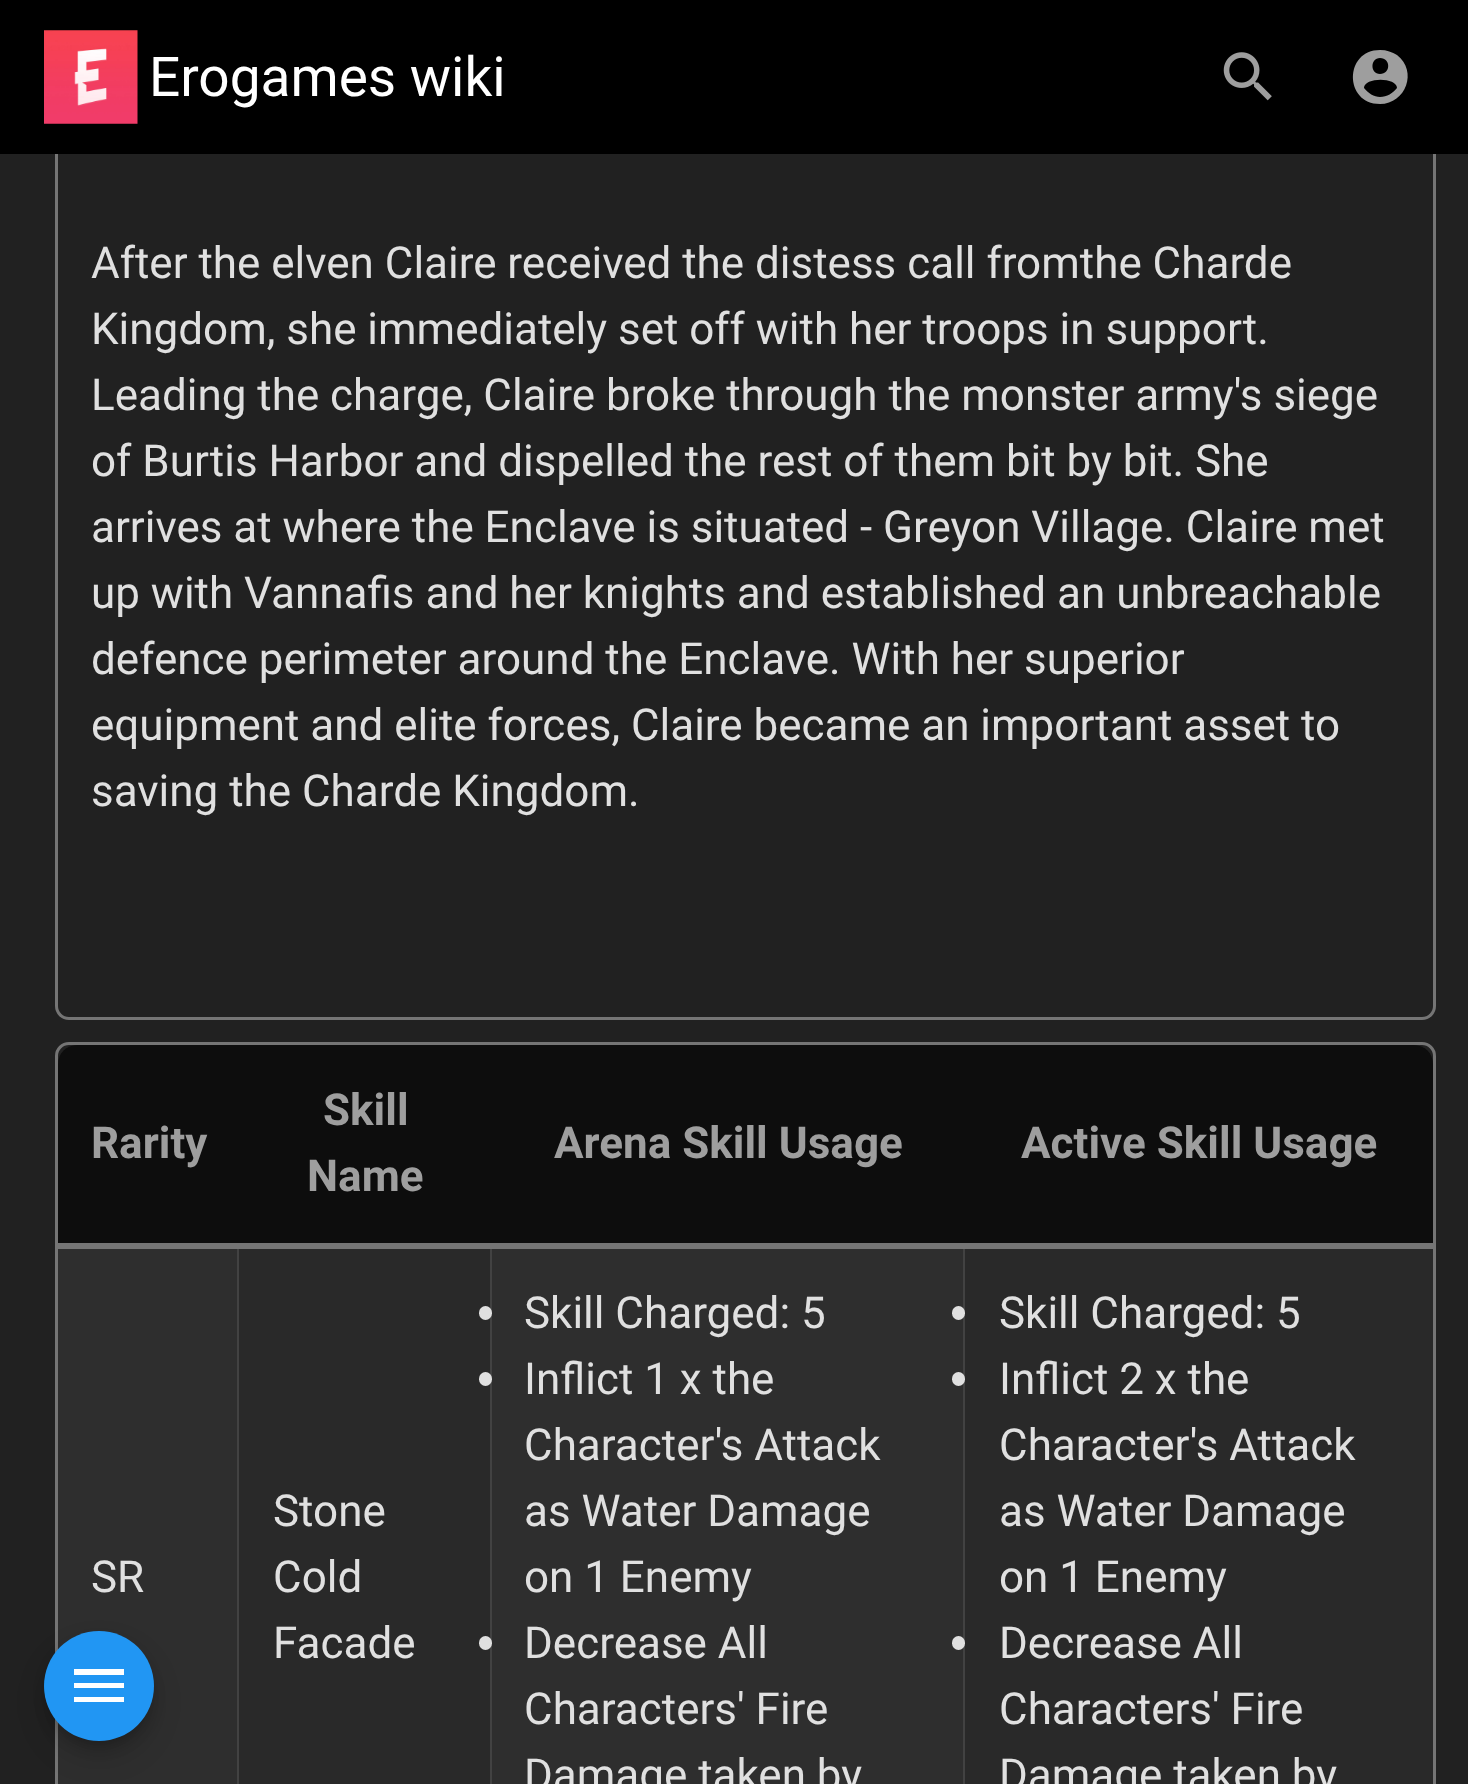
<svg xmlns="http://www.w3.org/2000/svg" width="1468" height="1784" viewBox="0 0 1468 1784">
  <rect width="100%" height="100%" fill="rgb(33,33,33)"/>
  <rect x="56.5" y="130.5" width="1378" height="888" rx="12.5" fill="none" stroke="rgb(117,117,117)" stroke-width="3"/>
  <rect x="0" y="0" width="1468" height="154" fill="rgb(0,0,0)"/>
  <image x="44" y="30" width="94" height="94" href="pic1.png"/>
  <text x="149" y="96" font-family="Roboto" font-size="55" fill="rgb(255,255,255)">Erogames wiki</text>
  <image x="1223" y="52" width="49" height="49" href="pic2.png"/>
  <path d="M1380 97C1374 97 1368 93 1364 88C1364 77 1397 77 1397 88C1393 93 1387 97 1380 97ZM1380 58C1391 58 1391 74 1380 74C1370 74 1370 58 1380 58ZM1380 50C1344 50 1344 104 1380 104C1406 104 1418 71 1397 55C1392 52 1387 50 1380 50Z" fill="rgb(158,158,158)"/>
  <g font-family="Roboto" font-size="44" fill="rgb(224,224,224)">
    <text>
      <tspan x="91" y="278">After the elven Claire received the distess call fromthe Charde</tspan>
      <tspan x="91" y="344">Kingdom, she immediately set off with her troops in support.</tspan>
      <tspan x="91" y="410">Leading the charge, Claire broke through the monster army's siege</tspan>
      <tspan x="91" y="476">of Burtis Harbor and dispelled the rest of them bit by bit. She</tspan>
      <tspan x="91" y="542">arrives at where the Enclave is situated - Greyon Village. Claire met</tspan>
      <tspan x="91" y="608">up with Vannafis and her knights and established an unbreachable</tspan>
      <tspan x="91" y="674">defence perimeter around the Enclave. With her superior</tspan>
      <tspan x="91" y="740">equipment and elite forces, Claire became an important asset to</tspan>
      <tspan x="91" y="806">saving the Charde Kingdom.</tspan>
    </text>
  </g>
  <rect x="56.5" y="1043.5" width="1378" height="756" rx="12.5" fill="none" stroke="rgb(117,117,117)" stroke-width="3"/>
  <path d="M77 1045H239V1249H58V1064C58 1053.5 66.5 1045 77 1045Z" fill="rgb(13,13,13)"/>
  <rect x="58" y="1243" width="907" height="6" fill="rgb(117,117,117)"/>
  <text x="91" y="1158" font-family="Roboto" font-size="44" font-weight="bold" fill="rgb(158,158,158)">Rarity</text>
  <rect x="239" y="1045" width="726" height="198" fill="rgb(13,13,13)"/>
  <g font-family="Roboto" font-size="44" font-weight="bold" fill="rgb(158,158,158)">
    <text x="323" y="1125">Skill</text>
    <text x="307" y="1191">Name</text>
    <text x="554" y="1158">Arena Skill Usage</text>
  </g>
  <path d="M965 1045H1414C1424.5 1045 1433 1053.5 1433 1064V1249H965Z" fill="rgb(13,13,13)"/>
  <rect x="965" y="1243" width="468" height="6" fill="rgb(117,117,117)"/>
  <text x="1021" y="1158" font-family="Roboto" font-size="44" font-weight="bold" fill="rgb(158,158,158)">Active Skill Usage</text>
  <rect x="58" y="1249" width="179" height="535" fill="rgb(46,46,46)"/>
  <rect x="237" y="1249" width="2" height="535" fill="rgb(66,66,66)"/>
  <text x="91" y="1592" font-family="Roboto" font-size="44" fill="rgb(224,224,224)">SR</text>
  <rect x="239" y="1249" width="251" height="535" fill="rgb(41,41,41)"/>
  <rect x="490" y="1249" width="2" height="535" fill="rgb(66,66,66)"/>
  <g font-family="Roboto" font-size="44" fill="rgb(224,224,224)">
    <text>
      <tspan x="273" y="1526">Stone</tspan>
      <tspan x="273" y="1592">Cold</tspan>
      <tspan x="273" y="1658">Facade</tspan>
    </text>
  </g>
  <rect x="492" y="1249" width="471" height="535" fill="rgb(46,46,46)"/>
  <rect x="963" y="1249" width="2" height="535" fill="rgb(66,66,66)"/>
  <rect x="479" y="1306" width="13" height="14" rx="6.5" fill="rgb(224,224,224)"/>
  <text x="524" y="1328" font-family="Roboto" font-size="44" fill="rgb(224,224,224)">Skill Charged: 5</text>
  <rect x="479" y="1372" width="13" height="14" rx="6.5" fill="rgb(224,224,224)"/>
  <g font-family="Roboto" font-size="44" fill="rgb(224,224,224)">
    <text>
      <tspan x="524" y="1394">Inflict 1 x the</tspan>
      <tspan x="524" y="1460">Character's Attack</tspan>
      <tspan x="524" y="1526">as Water Damage</tspan>
      <tspan x="524" y="1592">on 1 Enemy</tspan>
    </text>
  </g>
  <rect x="479" y="1636" width="13" height="14" rx="6.5" fill="rgb(224,224,224)"/>
  <g font-family="Roboto" font-size="44" fill="rgb(224,224,224)">
    <text>
      <tspan x="524" y="1658">Decrease All</tspan>
      <tspan x="524" y="1724">Characters' Fire</tspan>
      <tspan x="524" y="1790">Damage taken by</tspan>
    </text>
  </g>
  <rect x="965" y="1249" width="468" height="535" fill="rgb(41,41,41)"/>
  <rect x="952" y="1306" width="13" height="14" rx="6.5" fill="rgb(224,224,224)"/>
  <text x="999" y="1328" font-family="Roboto" font-size="44" fill="rgb(224,224,224)">Skill Charged: 5</text>
  <rect x="952" y="1372" width="13" height="14" rx="6.5" fill="rgb(224,224,224)"/>
  <g font-family="Roboto" font-size="44" fill="rgb(224,224,224)">
    <text>
      <tspan x="999" y="1394">Inflict 2 x the</tspan>
      <tspan x="999" y="1460">Character's Attack</tspan>
      <tspan x="999" y="1526">as Water Damage</tspan>
      <tspan x="999" y="1592">on 1 Enemy</tspan>
    </text>
  </g>
  <rect x="952" y="1636" width="13" height="14" rx="6.5" fill="rgb(224,224,224)"/>
  <g font-family="Roboto" font-size="44" fill="rgb(224,224,224)">
    <text>
      <tspan x="999" y="1658">Decrease All</tspan>
      <tspan x="999" y="1724">Characters' Fire</tspan>
      <tspan x="999" y="1790">Damage taken by</tspan>
    </text>
  </g>
  <rect x="44" y="1647" width="110" height="110" rx="55" fill="rgba(0,0,0,0.14)" filter="blur(14px)"/>
  <rect x="47" y="1642" width="104" height="104" rx="52" fill="rgba(0,0,0,0.2)" filter="blur(7px)"/>
  <circle cx="99" cy="1686" r="55" fill="rgb(33,150,243)"/>
  <path d="M74 1669H124V1675H74ZM74 1683H124V1688H74ZM74 1697H124V1702H74Z" fill="rgb(255,255,255)"/>
</svg>
